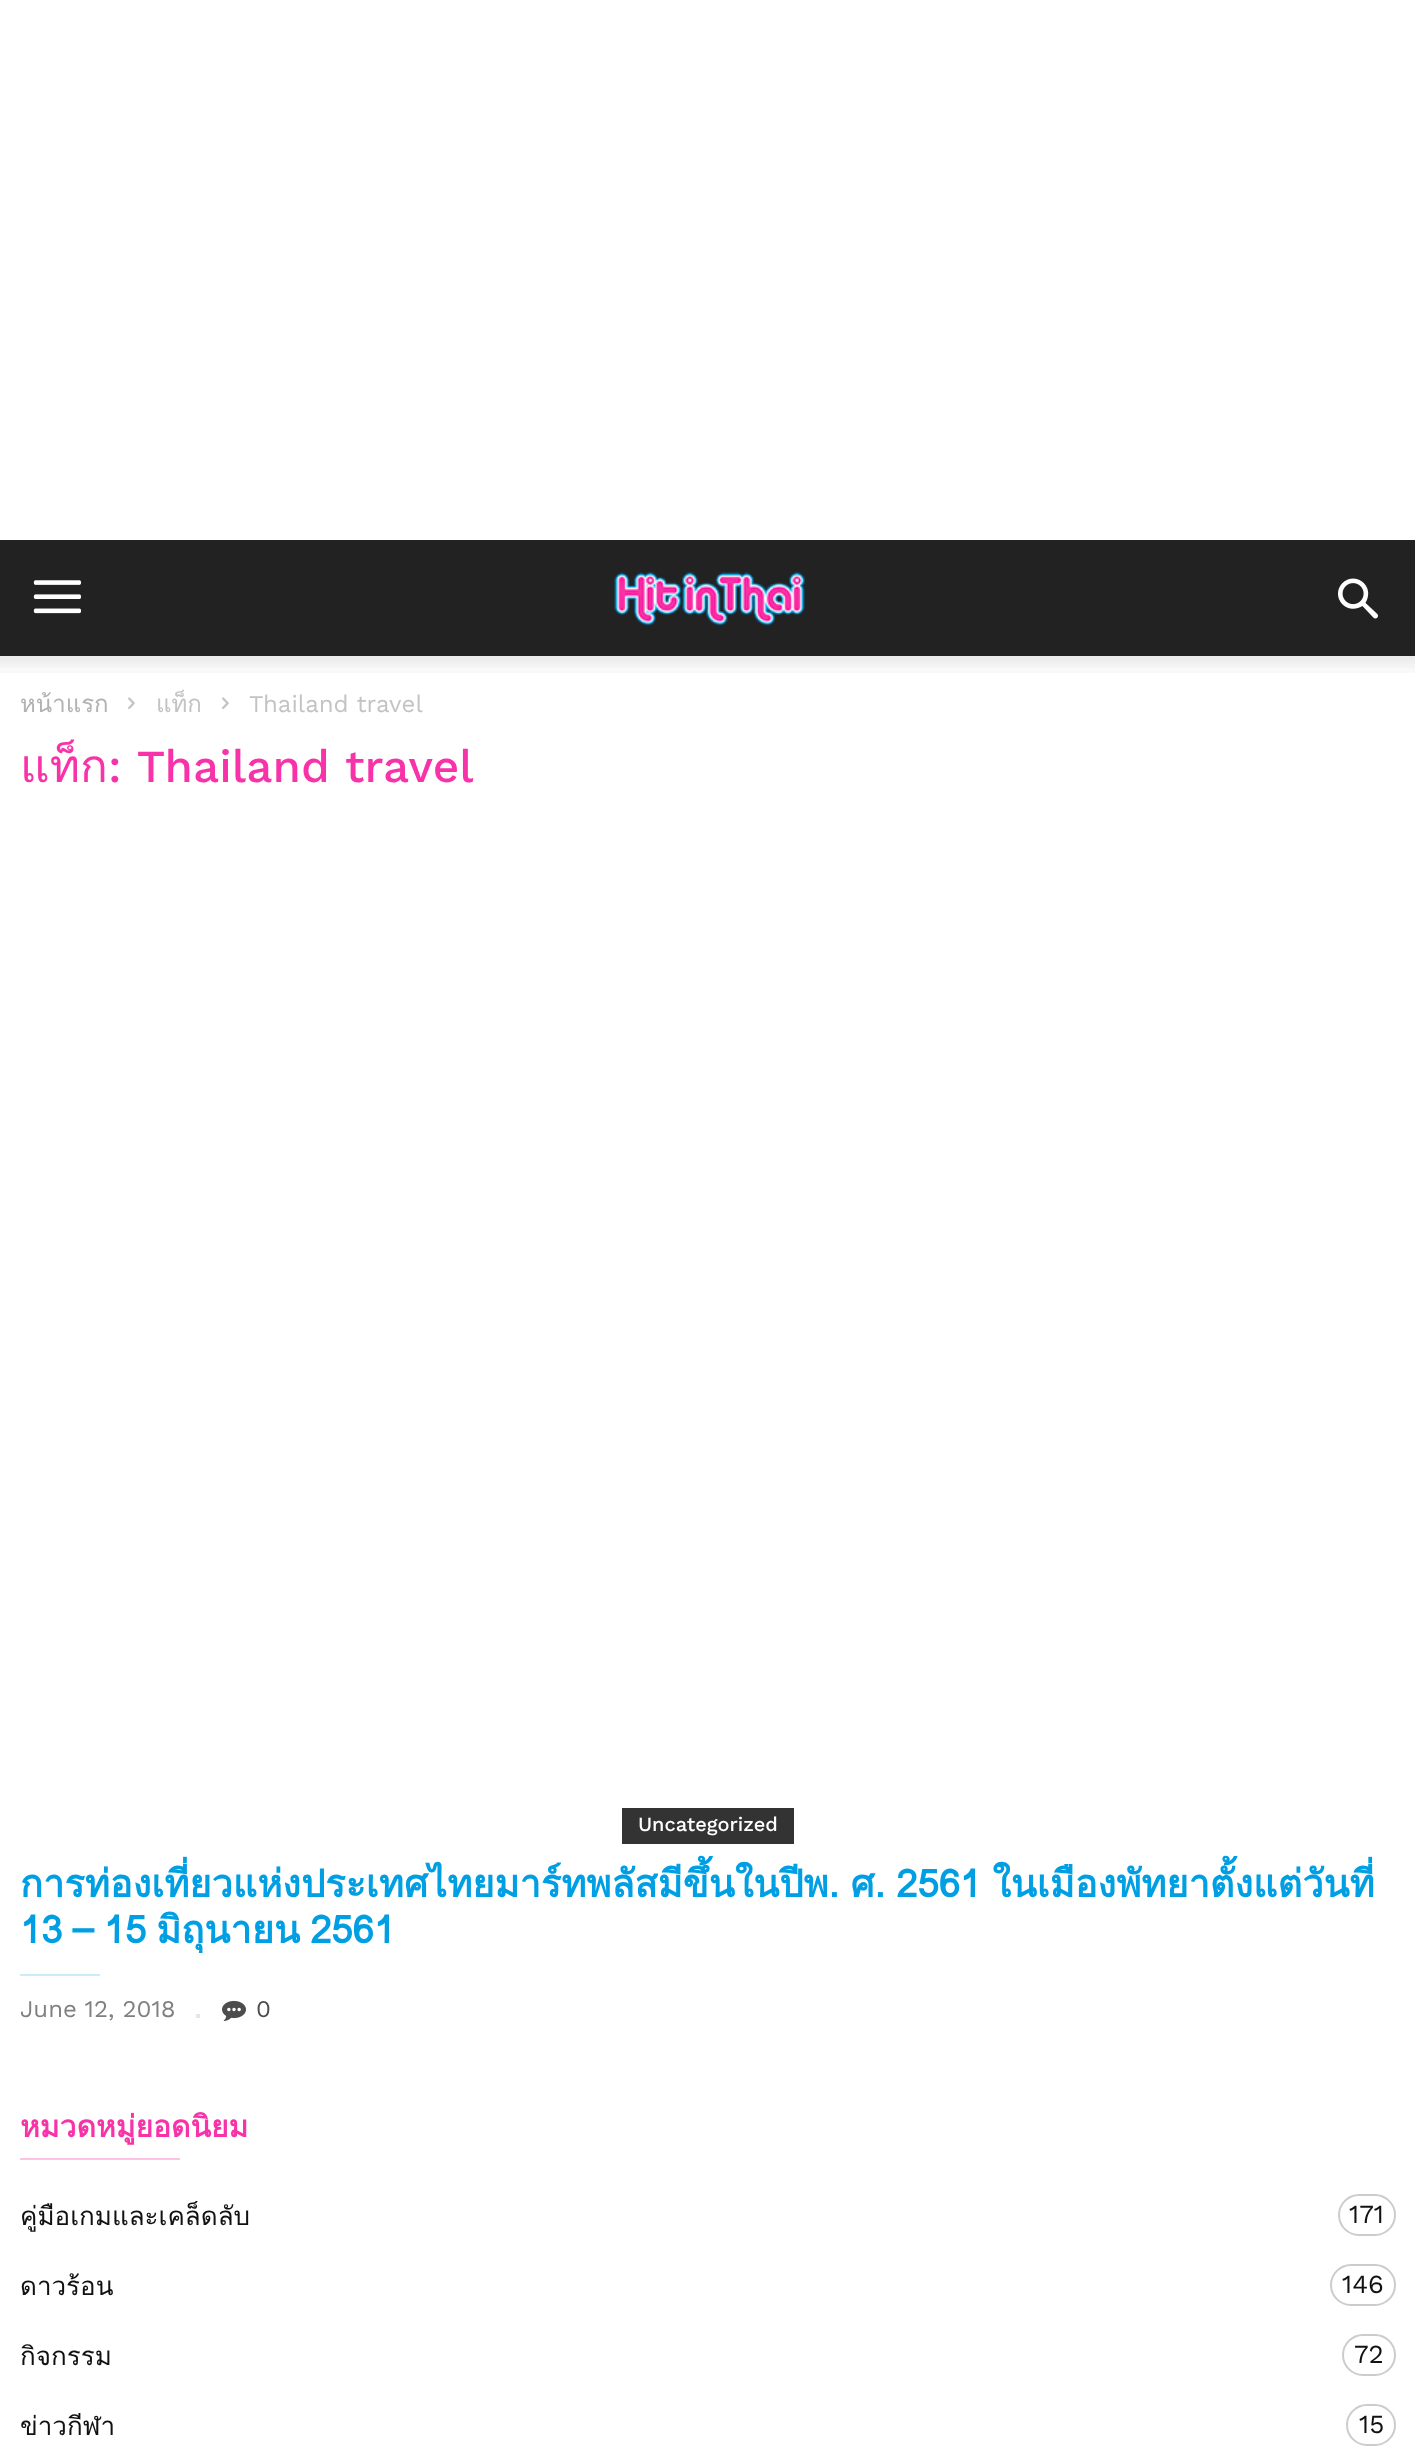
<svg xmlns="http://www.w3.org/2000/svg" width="1415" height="2461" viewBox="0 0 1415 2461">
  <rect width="100%" height="100%" fill="rgb(255,255,255)"/>
  <rect x="0" y="540" width="1415" height="116" fill="rgb(34,34,34)"/>
  <image x="33" y="580" width="49" height="34" href="pic1.png"/>
  <image x="614" y="572" width="191" height="54" href="pic2.png"/>
  <image x="1338" y="578" width="40" height="41" href="pic3.png"/>
  <image x="0" y="656" width="1415" height="17" href="pic4.png"/>
  <text x="20" y="712" font-family="Loma" font-size="24" fill="rgb(178,178,178)">หน้าแรก</text>
  <image x="128" y="697" width="7" height="12" href="pic5.png"/>
  <text x="156" y="712" font-family="Loma" font-size="24" fill="rgb(195,195,195)">แท็ก</text>
  <image x="222" y="697" width="7" height="12" href="pic5.png"/>
  <text x="249" y="712" font-family="Work Sans" font-size="24" fill="rgb(195,195,195)">Thailand travel</text>
  <text x="20" y="782" font-family="Loma" font-size="46" fill="rgb(248,51,169)">แท็ก</text>
  <text x="108" y="782" word-spacing="1" font-family="Work Sans" font-size="46" font-weight="500" fill="rgb(248,51,169)">: Thailand travel</text>
  <rect x="622" y="1808" width="172" height="36" fill="rgb(51,51,51)"/>
  <text x="638" y="1831" font-family="Work Sans" font-size="20" font-weight="500" fill="rgb(255,255,255)">Uncategorized</text>
  <g font-family="Loma" font-size="38" font-weight="bold" fill="rgb(0,159,227)">
    <text>
      <tspan x="20" y="1897" word-spacing="-1.5">การท่องเที่ยวแห่งประเทศไทยมาร์ทพลัสมีขึ้นในปีพ. ศ. 2561 ในเมืองพัทยาตั้งแต่วันที่</tspan>
      <tspan x="20" y="1943" word-spacing="-2.5">13 – 15 มิถุนายน 2561</tspan>
    </text>
  </g>
  <rect x="20" y="1974" width="80" height="2" fill="rgb(204,236,249)"/>
  <text x="20" y="2017" font-family="Work Sans" font-size="24" fill="rgb(128,128,128)">June 12, 2018</text>
  <rect x="196" y="2014" width="4" height="4" fill="rgb(230,230,230)"/>
  <image x="222" y="2000" width="24" height="21" href="pic6.png"/>
  <text x="256" y="2017" font-family="Work Sans" font-size="24" fill="rgb(77,77,77)">0</text>
  <text x="20" y="2137" font-family="Loma" font-size="30" font-weight="bold" fill="rgb(248,51,169)">หมวดหมู่ยอดนิยม</text>
  <rect x="20" y="2158" width="160" height="2" fill="rgb(253,194,229)"/>
  <text x="20" y="2225" font-family="Loma" font-size="26" fill="rgb(17,17,17)">คู่มือเกมและเคล็ดลับ</text>
  <rect x="1339" y="2195" width="56" height="40" rx="20" fill="none" stroke="rgb(204,204,204)" stroke-width="2"/>
  <text x="1349" y="2223" font-family="Work Sans" font-size="26" fill="rgb(17,17,17)">171</text>
  <text x="20" y="2295" font-family="Loma" font-size="26" fill="rgb(17,17,17)">ดาวร้อน</text>
  <rect x="1331" y="2265" width="64" height="40" rx="20" fill="none" stroke="rgb(204,204,204)" stroke-width="2"/>
  <text x="1342" y="2293" font-family="Work Sans" font-size="26" fill="rgb(17,17,17)">146</text>
  <text x="20" y="2365" font-family="Loma" font-size="26" fill="rgb(17,17,17)">กิจกรรม</text>
  <rect x="1343" y="2335" width="52" height="40" rx="20" fill="none" stroke="rgb(204,204,204)" stroke-width="2"/>
  <text x="1354" y="2363" font-family="Work Sans" font-size="26" fill="rgb(17,17,17)">72</text>
  <text x="20" y="2435" font-family="Loma" font-size="26" fill="rgb(17,17,17)">ข่าวกีฬา</text>
  <rect x="1347" y="2405" width="48" height="40" rx="20" fill="none" stroke="rgb(204,204,204)" stroke-width="2"/>
  <text x="1359" y="2433" font-family="Work Sans" font-size="26" fill="rgb(17,17,17)">15</text>
</svg>
